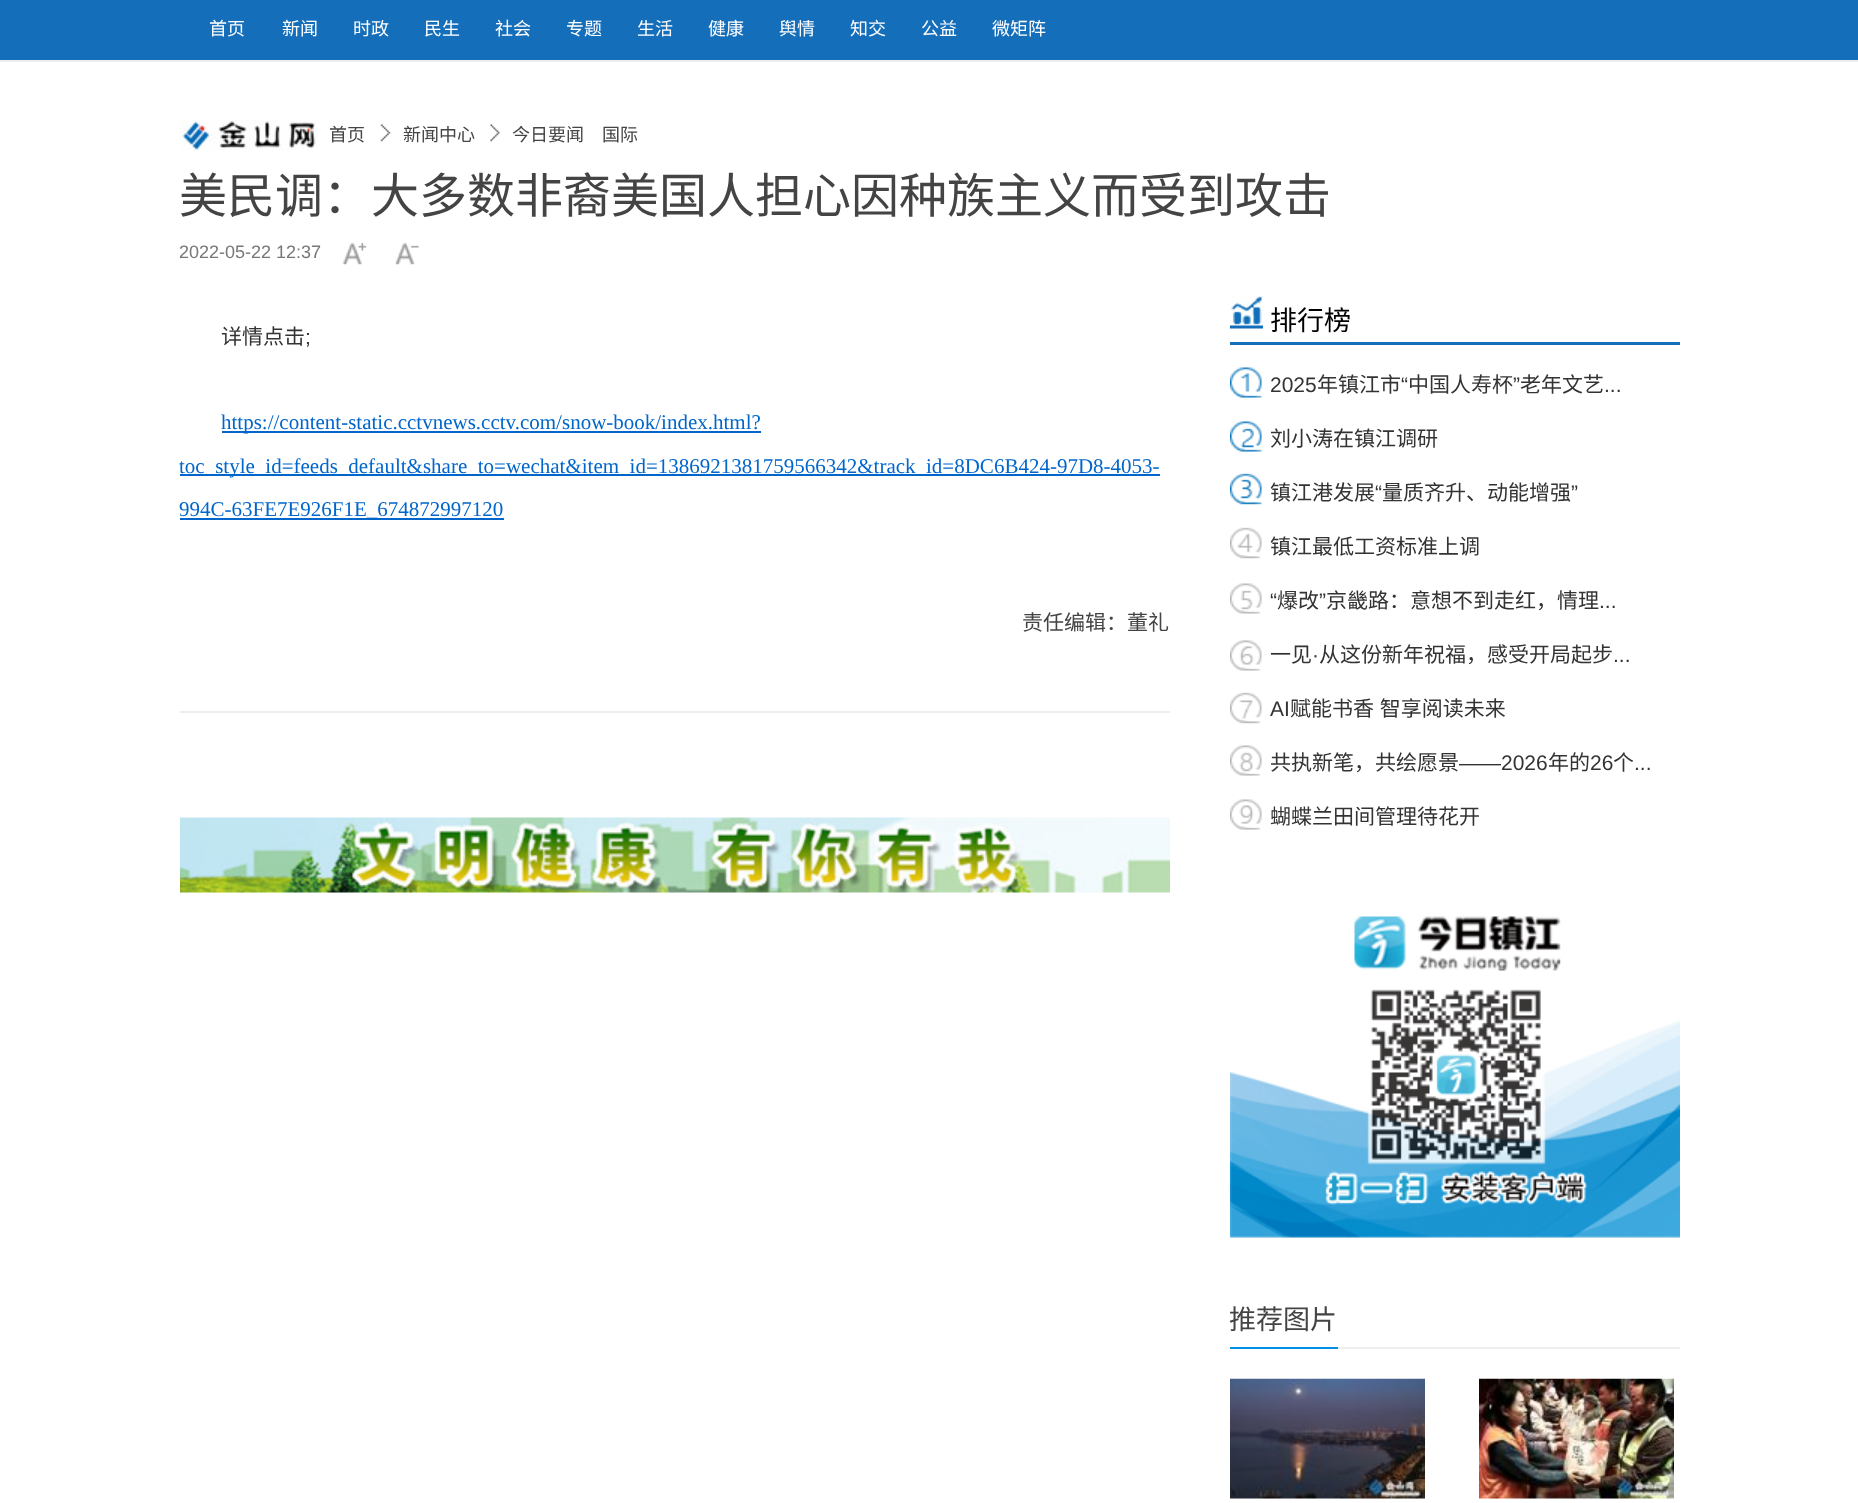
<svg xmlns="http://www.w3.org/2000/svg" width="1858" height="1503" viewBox="0 0 1858 1503">
  <rect width="100%" height="100%" fill="rgb(255,255,255)"/>
  <rect x="0" y="0" width="1858" height="60" fill="rgb(20,110,186)"/>
  <rect x="0" y="60" width="1858" height="2" fill="rgb(238,238,238)"/>
  <g font-family="Noto Sans CJK SC" font-size="18" fill="rgb(255,255,255)">
    <text x="209" y="35">首页</text>
    <text x="282" y="35">新闻</text>
    <text x="353" y="35">时政</text>
    <text x="424" y="35">民生</text>
    <text x="495" y="35">社会</text>
    <text x="566" y="35">专题</text>
    <text x="637" y="35">生活</text>
    <text x="708" y="35">健康</text>
    <text x="779" y="35">舆情</text>
    <text x="850" y="35">知交</text>
    <text x="921" y="35">公益</text>
    <text x="992" y="35">微矩阵</text>
  </g>
  <image x="180" y="120" width="138" height="30" href="pic1.png"/>
  <text x="329" y="141" font-family="Noto Sans CJK SC" font-size="18" fill="rgb(68,68,68)">首页</text>
  <image x="380" y="124" width="11" height="18" href="pic2.png"/>
  <text x="403" y="141" font-family="Noto Sans CJK SC" font-size="18" fill="rgb(68,68,68)">新闻中心</text>
  <image x="490" y="124" width="10" height="18" href="pic3.png"/>
  <text x="512" y="141" font-family="Noto Sans CJK SC" font-size="18" fill="rgb(68,68,68)">今日要闻　国际</text>
  <text x="179" y="213" font-family="Noto Sans CJK SC" font-size="48" fill="rgb(68,68,68)">美民调：大多数非裔美国人担心因种族主义而受到攻击</text>
  <text x="179" y="258" font-family="Liberation Sans" font-size="18" fill="rgb(119,119,119)">2022-05-22 12:37</text>
  <image x="342" y="242" width="25" height="23" href="pic4.png"/>
  <image x="395" y="242" width="24" height="23" href="pic5.png"/>
  <text x="221" y="344" font-family="Noto Sans CJK SC" font-size="21" fill="rgb(51,51,51)">详情点击</text>
  <text x="305" y="344" font-family="Liberation Sans" font-size="21" fill="rgb(51,51,51)">;</text>
  <rect x="222" y="431" width="539" height="2" fill="rgb(0,102,204)"/>
  <text x="221" y="429" font-family="Liberation Serif" font-size="21" fill="rgb(0,102,204)">https://content-static.cctvnews.cctv.com/snow-book/index.html?</text>
  <rect x="180" y="474" width="980" height="2" fill="rgb(0,102,204)"/>
  <text x="179" y="473" font-family="Liberation Serif" font-size="21" fill="rgb(0,102,204)">toc_style_id=feeds_default&amp;share_to=wechat&amp;item_id=1386921381759566342&amp;track_id=8DC6B424-97D8-4053-</text>
  <rect x="180" y="518" width="324" height="2" fill="rgb(0,102,204)"/>
  <text x="179" y="516" font-family="Liberation Serif" font-size="21" fill="rgb(0,102,204)">994C-63FE7E926F1E_674872997120</text>
  <text x="1022" y="630" font-family="Noto Sans CJK SC" font-size="21" fill="rgb(68,68,68)">责任编辑：董礼</text>
  <rect x="180" y="711" width="990" height="2" fill="rgb(238,238,238)"/>
  <image x="180" y="817" width="990" height="76" href="pic6.png"/>
  <rect x="1230" y="342" width="450" height="3" fill="rgb(20,110,186)"/>
  <image x="1230" y="296" width="33" height="33" href="pic7.png"/>
  <text x="1270" y="330" font-family="Noto Sans CJK SC" font-size="27" fill="rgb(0,0,0)">排行榜</text>
  <image x="1230" y="367" width="32" height="463" href="pic8.png"/>
  <text x="1270" y="392" font-family="Liberation Sans" font-size="21" fill="rgb(51,51,51)">2025</text>
  <text x="1317" y="392" font-family="Noto Sans CJK SC" font-size="21" fill="rgb(51,51,51)">年镇江市</text>
  <text x="1401" y="392" font-family="Liberation Sans" font-size="21" fill="rgb(51,51,51)">“</text>
  <text x="1408" y="392" font-family="Noto Sans CJK SC" font-size="21" fill="rgb(51,51,51)">中国人寿杯</text>
  <text x="1513" y="392" font-family="Liberation Sans" font-size="21" fill="rgb(51,51,51)">”</text>
  <text x="1520" y="392" font-family="Noto Sans CJK SC" font-size="21" fill="rgb(51,51,51)">老年文艺</text>
  <text x="1604" y="392" font-family="Liberation Sans" font-size="21" fill="rgb(51,51,51)">...</text>
  <g font-family="Noto Sans CJK SC" font-size="21" fill="rgb(51,51,51)">
    <text x="1270" y="446">刘小涛在镇江调研</text>
    <text x="1270" y="500">镇江港发展</text>
  </g>
  <text x="1375" y="500" font-family="Liberation Sans" font-size="21" fill="rgb(51,51,51)">“</text>
  <text x="1382" y="500" font-family="Noto Sans CJK SC" font-size="21" fill="rgb(51,51,51)">量质齐升、动能增强</text>
  <text x="1571" y="500" font-family="Liberation Sans" font-size="21" fill="rgb(51,51,51)">”</text>
  <text x="1270" y="554" font-family="Noto Sans CJK SC" font-size="21" fill="rgb(51,51,51)">镇江最低工资标准上调</text>
  <text x="1270" y="608" font-family="Liberation Sans" font-size="21" fill="rgb(51,51,51)">“</text>
  <text x="1277" y="608" font-family="Noto Sans CJK SC" font-size="21" fill="rgb(51,51,51)">爆改</text>
  <text x="1319" y="608" font-family="Liberation Sans" font-size="21" fill="rgb(51,51,51)">”</text>
  <text x="1326" y="608" font-family="Noto Sans CJK SC" font-size="21" fill="rgb(51,51,51)">京畿路：意想不到走红，情理</text>
  <text x="1599" y="608" font-family="Liberation Sans" font-size="21" fill="rgb(51,51,51)">...</text>
  <text x="1270" y="662" font-family="Noto Sans CJK SC" font-size="21" fill="rgb(51,51,51)">一见</text>
  <text x="1312" y="662" font-family="Liberation Sans" font-size="21" fill="rgb(51,51,51)">·</text>
  <text x="1319" y="662" font-family="Noto Sans CJK SC" font-size="21" fill="rgb(51,51,51)">从这份新年祝福，感受开局起步</text>
  <g font-family="Liberation Sans" font-size="21" fill="rgb(51,51,51)">
    <text x="1613" y="662">...</text>
    <text x="1270" y="716">AI</text>
  </g>
  <g font-family="Noto Sans CJK SC" font-size="21" fill="rgb(51,51,51)">
    <text x="1290" y="716" word-spacing="1">赋能书香 智享阅读未来</text>
    <text x="1270" y="770">共执新笔，共绘愿景</text>
  </g>
  <text x="1459" y="770" font-family="Liberation Sans" font-size="21" fill="rgb(51,51,51)">——2026</text>
  <text x="1548" y="770" font-family="Noto Sans CJK SC" font-size="21" fill="rgb(51,51,51)">年的</text>
  <text x="1590" y="770" font-family="Liberation Sans" font-size="21" fill="rgb(51,51,51)">26</text>
  <text x="1613" y="770" font-family="Noto Sans CJK SC" font-size="21" fill="rgb(51,51,51)">个</text>
  <text x="1634" y="770" font-family="Liberation Sans" font-size="21" fill="rgb(51,51,51)">...</text>
  <text x="1270" y="824" font-family="Noto Sans CJK SC" font-size="21" fill="rgb(51,51,51)">蝴蝶兰田间管理待花开</text>
  <rect x="1230" y="1237" width="450" height="1" fill="rgb(238,238,238)"/>
  <image x="1230" y="878" width="450" height="360" href="pic9.png"/>
  <rect x="1338" y="1347" width="342" height="2" fill="rgb(238,238,238)"/>
  <rect x="1230" y="1347" width="108" height="2" fill="rgb(0,145,228)"/>
  <text x="1229" y="1329" font-family="Noto Sans CJK SC" font-size="27" fill="rgb(68,68,68)">推荐图片</text>
  <image x="1230" y="1378" width="195" height="121" href="pic10.png"/>
  <image x="1479" y="1378" width="195" height="121" href="pic11.png"/>
</svg>
